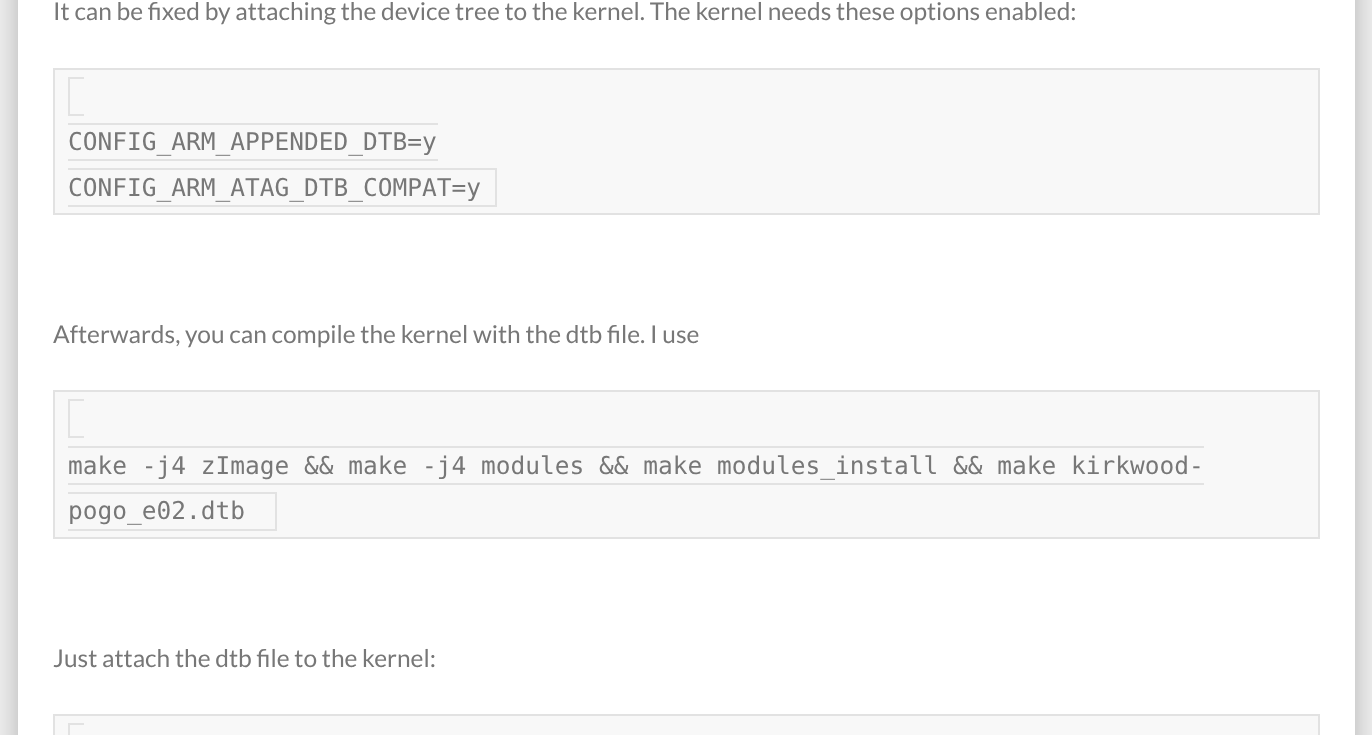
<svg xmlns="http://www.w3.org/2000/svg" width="1372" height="735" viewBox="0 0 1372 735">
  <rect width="100%" height="100%" fill="rgb(238,238,238)"/>
  <rect x="18" y="-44" width="1337" height="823" rx="5" fill="rgba(0,0,0,0.25)" filter="blur(13px)"/>
  <rect x="18" y="0" width="1337" height="735" fill="rgb(255,255,255)"/>
  <text x="53" y="20" font-family="Lato" font-size="24.5" fill="rgb(119,119,119)">It can be fixed by attaching the device tree to the kernel. The kernel needs these options enabled:</text>
  <rect x="54" y="69" width="1265" height="145" fill="rgb(248,248,248)" stroke="rgb(226,226,226)" stroke-width="2"/>
  <text x="68" y="150" font-family="DejaVu Sans Mono" font-size="24.5" fill="rgb(119,119,119)">CONFIG_ARM_APPENDED_DTB=y</text>
  <rect x="68" y="77" width="16" height="2" fill="rgb(226,226,226)"/>
  <rect x="68" y="114" width="16" height="2" fill="rgb(226,226,226)"/>
  <rect x="68" y="77" width="2" height="39" fill="rgb(226,226,226)"/>
  <rect x="68" y="123" width="370" height="2" fill="rgb(226,226,226)"/>
  <rect x="68" y="159" width="370" height="2" fill="rgb(226,226,226)"/>
  <text x="68" y="196" font-family="DejaVu Sans Mono" font-size="24.5" fill="rgb(119,119,119)">CONFIG_ARM_ATAG_DTB_COMPAT=y</text>
  <rect x="68" y="168" width="429" height="2" fill="rgb(226,226,226)"/>
  <rect x="68" y="205" width="413" height="2" fill="rgb(226,226,226)"/>
  <rect x="495" y="168" width="2" height="39" fill="rgb(226,226,226)"/>
  <rect x="481" y="205" width="16" height="2" fill="rgb(226,226,226)"/>
  <text x="53" y="343" font-family="Lato" font-size="24.5" fill="rgb(119,119,119)">Afterwards, you can compile the kernel with the dtb file. I use</text>
  <rect x="54" y="391" width="1265" height="147" fill="rgb(248,248,248)" stroke="rgb(226,226,226)" stroke-width="2"/>
  <text x="68" y="474" font-family="DejaVu Sans Mono" font-size="24.5" fill="rgb(119,119,119)">make -j4 zImage &amp;&amp; make -j4 modules &amp;&amp; make modules_install &amp;&amp; make kirkwood-</text>
  <rect x="68" y="399" width="16" height="2" fill="rgb(226,226,226)"/>
  <rect x="68" y="436" width="16" height="2" fill="rgb(226,226,226)"/>
  <rect x="68" y="399" width="2" height="39" fill="rgb(226,226,226)"/>
  <rect x="68" y="446" width="1136" height="2" fill="rgb(226,226,226)"/>
  <rect x="68" y="483" width="1136" height="2" fill="rgb(226,226,226)"/>
  <text x="68" y="519" font-family="DejaVu Sans Mono" font-size="24.5" fill="rgb(119,119,119)">pogo_e02.dtb</text>
  <rect x="68" y="492" width="209" height="2" fill="rgb(226,226,226)"/>
  <rect x="68" y="529" width="193" height="2" fill="rgb(226,226,226)"/>
  <rect x="275" y="492" width="2" height="38" fill="rgb(226,226,226)"/>
  <rect x="261" y="529" width="16" height="2" fill="rgb(226,226,226)"/>
  <text x="53" y="667" font-family="Lato" font-size="24.5" fill="rgb(119,119,119)">Just attach the dtb file to the kernel:</text>
  <rect x="54" y="715" width="1265" height="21" fill="rgb(248,248,248)" stroke="rgb(226,226,226)" stroke-width="2"/>
  <rect x="68" y="723" width="16" height="2" fill="rgb(226,226,226)"/>
  <rect x="68" y="723" width="2" height="12" fill="rgb(226,226,226)"/>
</svg>
